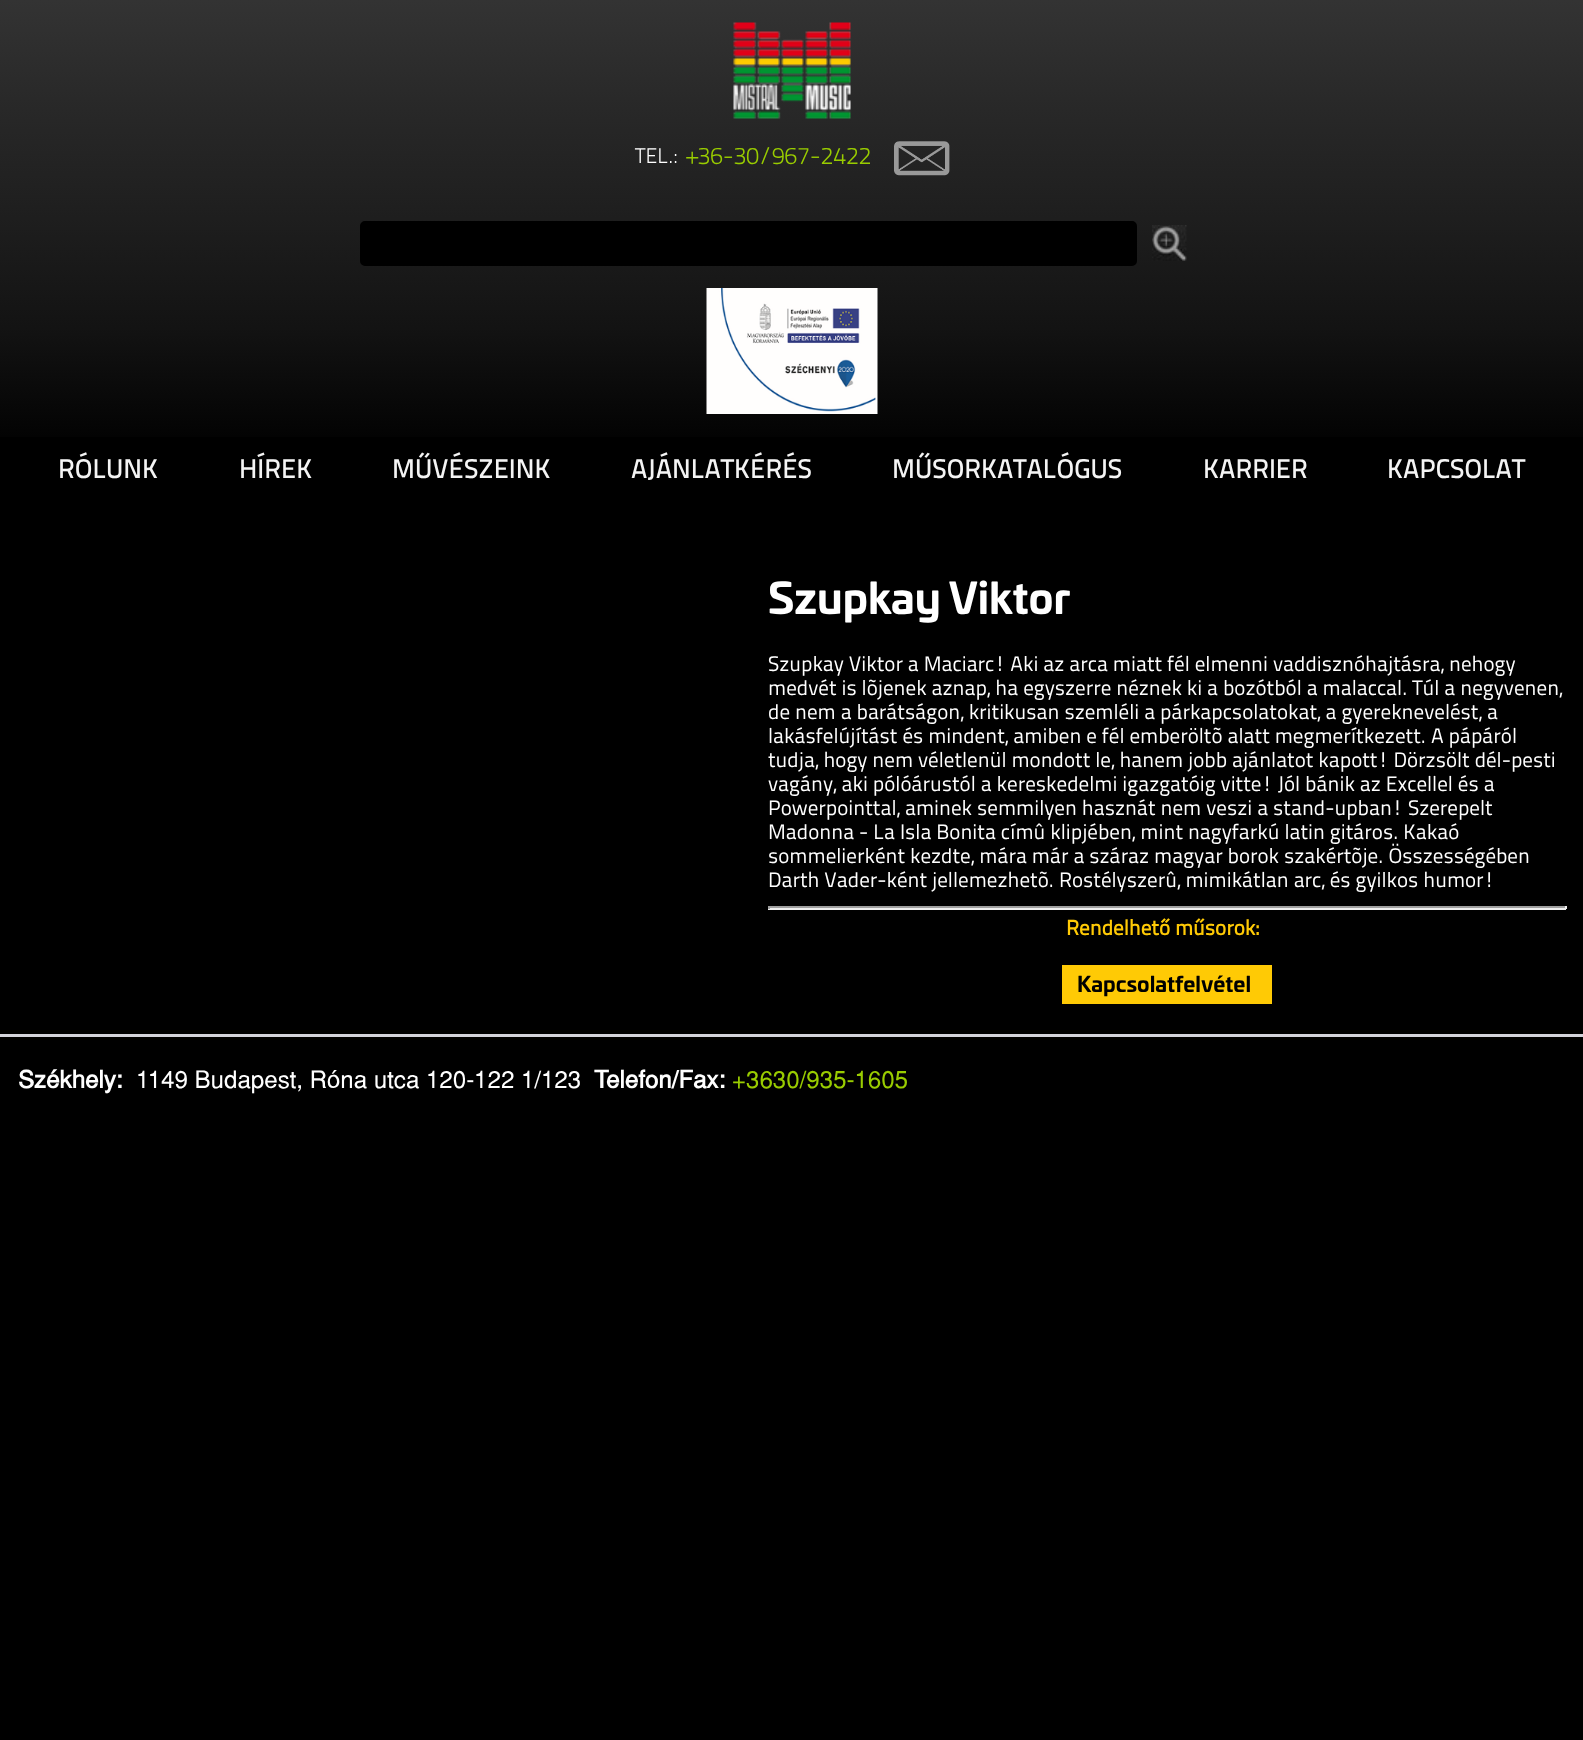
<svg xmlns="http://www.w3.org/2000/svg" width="1583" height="1740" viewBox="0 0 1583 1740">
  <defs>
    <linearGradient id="g1" gradientUnits="userSpaceOnUse" x1="792" y1="0" x2="792" y2="437"><stop offset="0" stop-color="rgb(51,51,51)"/><stop offset="0.25" stop-color="rgb(40,40,40)"/><stop offset="0.5" stop-color="rgb(30,30,30)"/><stop offset="0.75" stop-color="rgb(19,19,19)"/><stop offset="1" stop-color="rgb(3,3,3)"/></linearGradient>
  </defs>
  <rect width="100%" height="100%" fill="rgb(0,0,0)"/>
  <rect x="0" y="0" width="1583" height="437" fill="url(#g1)"/>
  <image x="733" y="22" width="118" height="97" href="pic1.png"/>
  <text x="635" y="163" font-family="'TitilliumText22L'" font-size="21" font-weight="300" fill="rgb(255,255,255)">TEL.:</text>
  <text x="687" y="164" font-family="'TitilliumText22L'" font-size="24" font-weight="300" fill="rgb(153,204,0)">+36-30/967-2422</text>
  <image x="894" y="141" width="56" height="35" href="pic2.png"/>
  <rect x="361" y="222" width="775" height="43" rx="4" fill="rgb(0,0,0)" stroke="rgb(0,0,0)" stroke-width="2"/>
  <image x="1152" y="225" width="35" height="36" href="pic3.png"/>
  <image x="706" y="288" width="172" height="126" href="pic4.png"/>
  <g font-family="'TitilliumText22L'" font-size="27" font-weight="500" fill="rgb(244,244,244)">
    <text x="58" y="478">RÓLUNK</text>
    <text x="239" y="478">HÍREK</text>
    <text x="392" y="478">MŰVÉSZEINK</text>
    <text x="631" y="478">AJÁNLATKÉRÉS</text>
    <text x="892" y="478">MŰSORKATALÓGUS</text>
    <text x="1203" y="478">KARRIER</text>
    <text x="1387" y="478">KAPCSOLAT</text>
  </g>
  <text x="768" y="614" font-family="'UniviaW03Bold'" font-size="42" font-weight="bold" fill="rgb(255,255,255)">Szupkay Viktor</text>
  <g font-family="'TitilliumText22L'" font-size="21" fill="rgb(255,255,255)">
    <text>
      <tspan x="768" y="671">Szupkay Viktor a Maciarc! Aki az arca miatt fél elmenni vaddisznóhajtásra, nehogy</tspan>
      <tspan x="768" y="695">medvét is lõjenek aznap, ha egyszerre néznek ki a bozótból a malaccal. Túl a negyvenen,</tspan>
      <tspan x="768" y="719">de nem a barátságon, kritikusan szemléli a párkapcsolatokat, a gyereknevelést, a</tspan>
      <tspan x="768" y="743">lakásfelújítást és mindent, amiben e fél emberöltõ alatt megmerítkezett. A pápáról</tspan>
      <tspan x="768" y="767">tudja, hogy nem véletlenül mondott le, hanem jobb ajánlatot kapott! Dörzsölt dél-pesti</tspan>
      <tspan x="768" y="791">vagány, aki pólóárustól a kereskedelmi igazgatóig vitte! Jól bánik az Excellel és a</tspan>
      <tspan x="768" y="815">Powerpointtal, aminek semmilyen hasznát nem veszi a stand-upban! Szerepelt</tspan>
      <tspan x="768" y="839">Madonna - La Isla Bonita címû klipjében, mint nagyfarkú latin gitáros. Kakaó</tspan>
      <tspan x="768" y="863">sommelierként kezdte, mára már a száraz magyar borok szakértõje. Összességében</tspan>
      <tspan x="768" y="887">Darth Vader-ként jellemezhetõ. Rostélyszerû, mimikátlan arc, és gyilkos humor!</tspan>
    </text>
  </g>
  <rect x="768" y="906" width="798" height="2" fill="rgb(159,159,159)"/>
  <rect x="1565" y="906" width="2" height="3" fill="rgb(238,238,238)"/>
  <rect x="768" y="908" width="798" height="2" fill="rgb(238,238,238)"/>
  <rect x="768" y="906" width="2" height="3" fill="rgb(159,159,159)"/>
  <text x="1066" y="935" font-family="'TitilliumText22L'" font-size="21" font-weight="bold" fill="rgb(255,202,5)">Rendelhető műsorok:</text>
  <rect x="1062" y="965" width="210" height="39" fill="rgb(255,202,5)"/>
  <text x="1077" y="992" font-family="'UniviaW03Bold'" font-size="21" font-weight="bold" fill="rgb(0,0,0)">Kapcsolatfelvétel</text>
  <rect x="0" y="1034" width="1583" height="3" fill="rgb(211,211,219)"/>
  <text x="18" y="1088" font-family="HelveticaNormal" font-size="24" font-weight="bold" fill="rgb(255,255,255)">Székhely:</text>
  <text x="136" y="1088" font-family="HelveticaNormal" font-size="24" fill="rgb(255,255,255)">1149 Budapest, Róna utca 120-122 1/123</text>
  <text x="594" y="1088" font-family="HelveticaNormal" font-size="24" font-weight="bold" fill="rgb(255,255,255)">Telefon/Fax:</text>
  <text x="732" y="1088" font-family="HelveticaNormal" font-size="24" fill="rgb(153,204,0)">+3630/935-1605</text>
</svg>
